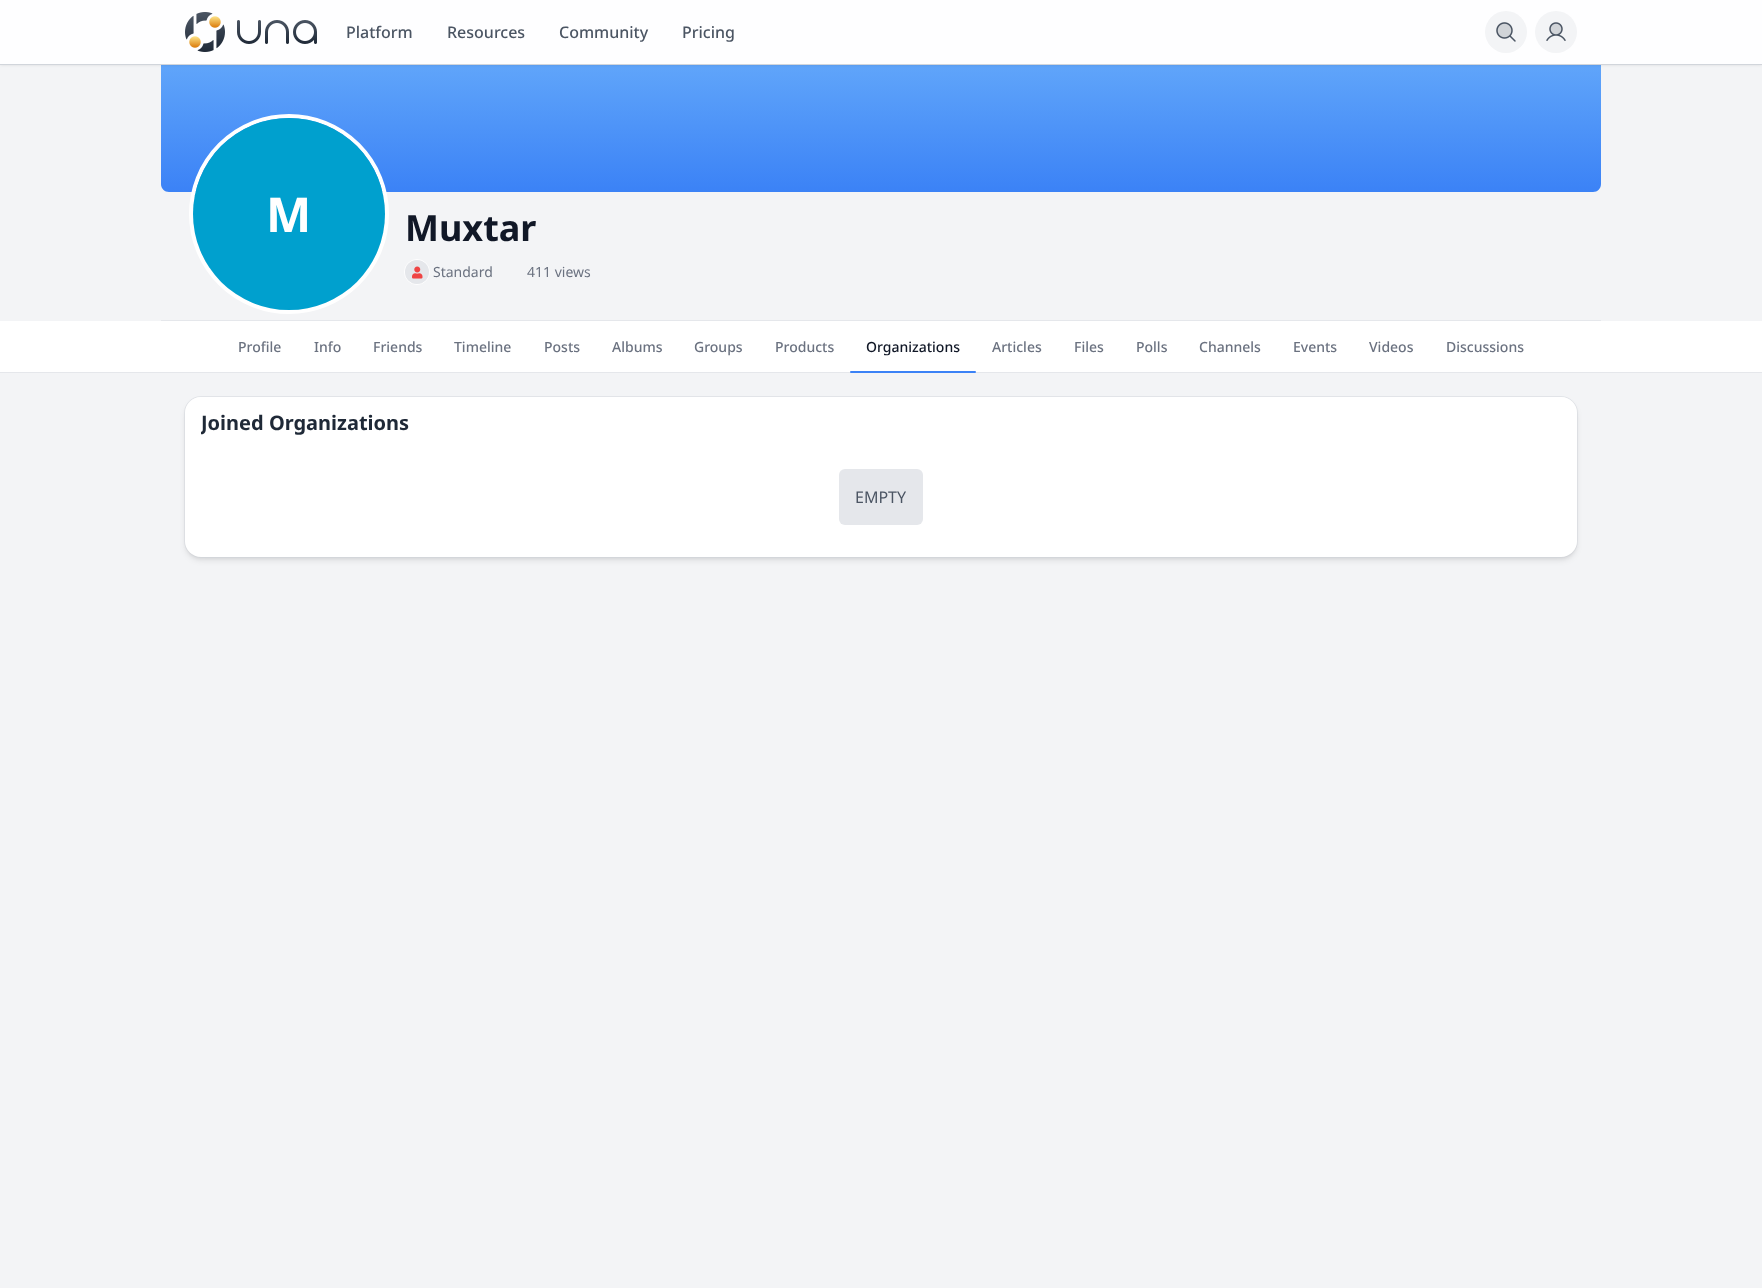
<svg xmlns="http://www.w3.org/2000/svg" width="1762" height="1288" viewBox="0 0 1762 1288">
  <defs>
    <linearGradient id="g1" gradientUnits="userSpaceOnUse" x1="881" y1="64" x2="881" y2="192"><stop offset="0" stop-color="rgb(96,165,250)"/><stop offset="1" stop-color="rgb(59,130,246)"/></linearGradient>
    <clipPath id="clip1"><rect x="201" y="409" width="1360" height="28"/></clipPath>
  </defs>
  <rect width="100%" height="100%" fill="rgb(243,244,246)"/>
  <path d="M161 64H1601V184C1601 188.5 1597.5 192 1593 192H169C164.5 192 161 188.5 161 184Z" fill="url(#g1)"/>
  <rect x="0" y="1" width="1762" height="64" fill="rgba(0,0,0,0.1)" filter="blur(1.5px)"/>
  <rect x="-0.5" y="-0.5" width="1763" height="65" fill="none" stroke="rgb(209,213,219)"/>
  <rect x="0" y="0" width="1762" height="64" fill="rgb(254,254,255)"/>
  <image x="185" y="12" width="132" height="40" href="pic1.png"/>
  <g font-family="Noto Sans" font-size="16" font-weight="500" fill="rgb(75,85,99)">
    <text x="346" y="38">Platform</text>
    <text x="447" y="38">Resources</text>
    <text x="559" y="38">Community</text>
    <text x="682" y="38">Pricing</text>
  </g>
  <circle cx="1506" cy="32" r="21" fill="rgb(243,244,246)"/>
  <image x="1496" y="22" width="20" height="20" href="pic2.png"/>
  <circle cx="1556" cy="32" r="21" fill="rgb(243,244,246)"/>
  <image x="1546" y="22" width="20" height="19" href="pic3.png"/>
  <circle cx="289" cy="214" r="98" fill="none" stroke="rgb(255,255,255)" stroke-width="4"/>
  <circle cx="289" cy="214" r="96" fill="rgb(0,160,206)"/>
  <text x="266" y="232" font-family="Noto Sans" font-size="48" font-weight="bold" fill="rgb(255,255,255)">M</text>
  <text x="405" y="241" font-family="Noto Sans" font-size="36" font-weight="bold" fill="rgb(17,24,39)">Muxtar</text>
  <circle cx="417" cy="272" r="12.5" fill="none" stroke="rgb(255,255,255)"/>
  <circle cx="417" cy="272" r="12" fill="rgb(229,231,235)"/>
  <image x="412" y="266" width="11" height="13" href="pic4.png"/>
  <g font-family="Noto Sans" font-size="14" fill="rgb(107,114,128)">
    <text x="433" y="277">Standard</text>
    <text x="527" y="277">411 views</text>
  </g>
  <rect x="161" y="320" width="1440" height="1" fill="rgb(229,231,235)"/>
  <rect x="0" y="321" width="1762" height="51" fill="rgb(255,255,255)"/>
  <rect x="0" y="372" width="1762" height="1" fill="rgb(229,231,235)"/>
  <g font-family="Noto Sans" font-size="14" font-weight="500" fill="rgb(107,114,128)">
    <text x="238" y="352">Profile</text>
    <text x="314" y="352">Info</text>
    <text x="373" y="352">Friends</text>
    <text x="454" y="352">Timeline</text>
    <text x="544" y="352">Posts</text>
    <text x="612" y="352">Albums</text>
    <text x="694" y="352">Groups</text>
    <text x="775" y="352">Products</text>
  </g>
  <text x="866" y="352" font-family="Noto Sans" font-size="14" font-weight="500" fill="rgb(17,24,39)">Organizations</text>
  <rect x="850" y="371" width="126" height="2" rx="1" fill="rgb(59,130,246)"/>
  <g font-family="Noto Sans" font-size="14" font-weight="500" fill="rgb(107,114,128)">
    <text x="992" y="352">Articles</text>
    <text x="1074" y="352">Files</text>
    <text x="1136" y="352">Polls</text>
    <text x="1199" y="352">Channels</text>
    <text x="1293" y="352">Events</text>
    <text x="1369" y="352">Videos</text>
    <text x="1446" y="352">Discussions</text>
  </g>
  <rect x="187" y="401" width="1388" height="156" rx="14" fill="rgba(0,0,0,0.1)" filter="blur(2px)"/>
  <rect x="186" y="402" width="1390" height="158" rx="15" fill="rgba(0,0,0,0.1)" filter="blur(3px)"/>
  <rect x="184.5" y="396.5" width="1393" height="161" rx="16.5" fill="none" stroke="rgba(209,213,219,0.5)"/>
  <rect x="185" y="397" width="1392" height="160" rx="16" fill="rgb(255,255,255)"/>
  <g clip-path="url(#clip1)">
    <text x="201" y="430" font-family="Noto Sans" font-size="20" font-weight="bold" fill="rgb(31,41,55)">Joined Organizations</text>
  </g>
  <rect x="839" y="469" width="84" height="56" rx="6" fill="rgb(229,231,235)"/>
  <text x="855" y="503" font-family="Noto Sans" font-size="16" fill="rgb(75,85,99)">EMPTY</text>
</svg>
